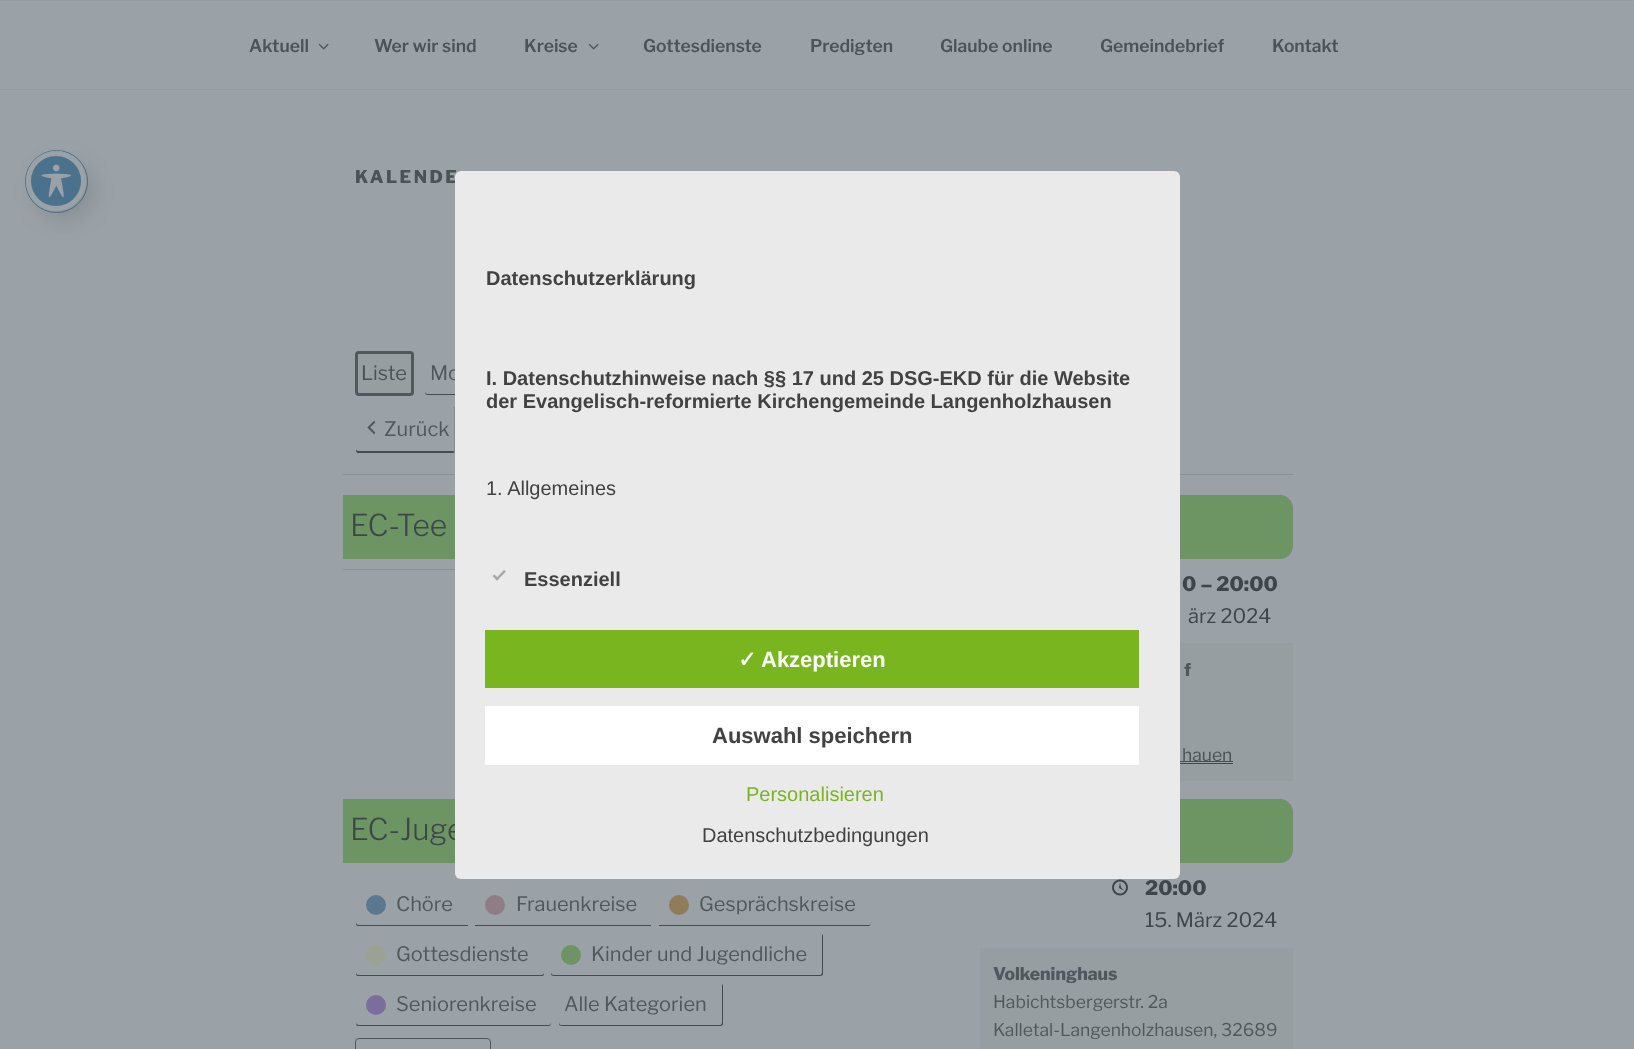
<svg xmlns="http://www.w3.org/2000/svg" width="1634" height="1049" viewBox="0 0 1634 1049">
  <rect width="100%" height="100%" fill="rgb(155,162,167)"/>
  <circle cx="56.5" cy="181.5" r="31" fill="none" stroke="rgb(74,114,141)"/>
  <rect x="34" y="161" width="60" height="60" rx="30" fill="rgba(63,70,75,0.2)" filter="blur(10px)"/>
  <circle cx="56" cy="181" r="27.5" fill="rgb(74,114,141)" stroke="rgb(155,162,167)" stroke-width="5"/>
  <image x="41" y="164" width="30" height="34" href="pic1.png"/>
  <rect x="0" y="0" width="1634" height="1" fill="rgb(148,156,161)"/>
  <rect x="0" y="89" width="1634" height="1" fill="rgb(148,156,161)"/>
  <text x="249" y="52" font-family="'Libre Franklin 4'" font-size="17.5" font-weight="100" fill="rgb(75,83,87)">Aktuell</text>
  <image x="318" y="43" width="11" height="7" href="pic2.png"/>
  <g font-family="'Libre Franklin 4'" font-size="17.5" font-weight="100" fill="rgb(75,83,87)">
    <text x="374" y="52">Wer wir sind</text>
    <text x="524" y="52">Kreise</text>
  </g>
  <image x="588" y="43" width="11" height="7" href="pic2.png"/>
  <g font-family="'Libre Franklin 4'" font-size="17.5" font-weight="100" fill="rgb(75,83,87)">
    <text x="643" y="52">Gottesdienste</text>
    <text x="810" y="52">Predigten</text>
    <text x="940" y="52">Glaube online</text>
    <text x="1100" y="52">Gemeindebrief</text>
    <text x="1272" y="52">Kontakt</text>
  </g>
  <text x="355" y="183" font-family="Libre Franklin" font-size="17.5" font-weight="100" letter-spacing="2.5" fill="rgb(75,83,87)">KALENDE</text>
  <rect x="355" y="351" width="59" height="45" rx="4" fill="rgb(150,158,162)"/>
  <rect x="356.5" y="352.5" width="56" height="42" rx="2.5" fill="none" stroke="rgb(80,88,92)" stroke-width="3"/>
  <text x="361" y="380" font-family="'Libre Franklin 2'" font-size="20" font-weight="100" fill="rgb(75,83,87)">Liste</text>
  <path d="M425 391V392C425 394 426 395 428 395H495V394H428C426 394 425 393 425 391Z" fill="rgb(68,76,80)"/>
  <text x="430" y="380" font-family="'Libre Franklin 2'" font-size="20" font-weight="100" fill="rgb(80,88,93)">Mo</text>
  <path d="M356 449V450C356 452 357 453 358 453H454V451H359C357 451 356 450 356 449Z" fill="rgb(68,76,80)"/>
  <path d="M455 406L453 408H454V452H453L455 454Z" fill="rgb(130,138,142)"/>
  <image x="367" y="420" width="9" height="15" href="pic3.png"/>
  <text x="384" y="436" font-family="'Libre Franklin 2'" font-size="20" font-weight="100" fill="rgb(80,88,93)">Zurück</text>
  <rect x="343" y="474" width="950" height="1" fill="rgb(138,146,150)"/>
  <path d="M343 495H1280C1287 495 1293 501 1293 508V546C1293 553 1287 559 1280 559H343Z" fill="rgb(109,148,99)"/>
  <text x="350" y="536" font-family="'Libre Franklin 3'" font-size="30" font-weight="100" fill="rgb(63,70,75)">EC-Tee</text>
  <text x="1182" y="591" font-family="Libre Franklin" font-size="20" font-weight="100" fill="rgb(63,70,75)">0 – 20:00</text>
  <text x="1188" y="623" font-family="'Libre Franklin 2'" font-size="20" font-weight="100" fill="rgb(63,70,75)">ärz 2024</text>
  <rect x="1180" y="643" width="113" height="138" fill="rgb(150,158,162)"/>
  <text x="1184" y="676" font-family="Libre Franklin" font-size="17.5" font-weight="100" fill="rgb(80,88,93)">f</text>
  <rect x="1180" y="761" width="53" height="1" fill="rgb(75,83,87)"/>
  <text x="1182" y="761" font-family="'Libre Franklin 2'" font-size="17.5" font-weight="100" fill="rgb(75,83,87)">hauen</text>
  <rect x="1180" y="763" width="53" height="1" fill="rgb(68,76,80)"/>
  <rect x="343" y="569" width="112" height="1" fill="rgb(138,146,150)"/>
  <path d="M343 799H1280C1287 799 1293 805 1293 812V850C1293 857 1287 863 1280 863H343Z" fill="rgb(109,148,99)"/>
  <text x="350" y="840" font-family="'Libre Franklin 3'" font-size="30" font-weight="100" fill="rgb(63,70,75)">EC-Juge</text>
  <image x="1112" y="879" width="16" height="17" href="pic4.png"/>
  <text x="1145" y="895" font-family="Libre Franklin" font-size="20" font-weight="100" fill="rgb(63,70,75)">20:00</text>
  <text x="1145" y="927" font-family="'Libre Franklin 2'" font-size="20" font-weight="100" fill="rgb(63,70,75)">15. März 2024</text>
  <rect x="980" y="948" width="313" height="101" fill="rgb(150,158,162)"/>
  <text x="993" y="980" font-family="Libre Franklin" font-size="17.5" font-weight="100" fill="rgb(80,88,93)">Volkeninghaus</text>
  <g font-family="'Libre Franklin 2'" font-size="17.5" font-weight="100" fill="rgb(80,88,93)">
    <text>
      <tspan x="993" y="1008">Habichtsbergerstr. 2a</tspan>
      <tspan x="993" y="1036">Kalletal-Langenholzhausen, 32689</tspan>
    </text>
  </g>
  <path d="M356 922V924C356 925 357 926 358 926H468V925H359C357 925 356 924 356 922Z" fill="rgb(68,76,80)"/>
  <circle cx="376" cy="905" r="10" fill="rgb(92,120,144)"/>
  <text x="396" y="911" font-family="'Libre Franklin 2'" font-size="20" font-weight="100" fill="rgb(80,88,93)">Chöre</text>
  <rect x="475" y="925" width="176" height="1" fill="rgb(68,76,80)"/>
  <circle cx="495" cy="905" r="10" fill="rgb(142,126,131)"/>
  <text x="516" y="911" font-family="'Libre Franklin 2'" font-size="20" font-weight="100" fill="rgb(80,88,93)">Frauenkreise</text>
  <path d="M659 925V926H869C871 925 871 923 871 922C871 924 870 925 869 925Z" fill="rgb(68,76,80)"/>
  <circle cx="679" cy="905" r="10" fill="rgb(142,124,90)"/>
  <text x="699" y="911" font-family="'Libre Franklin 2'" font-size="20" font-weight="100" fill="rgb(80,88,93)">Gesprächskreise</text>
  <path d="M356 972C356 974 356 976 358 976H542C544 976 544 974 544 972C544 974 543 975 541 975H359C357 975 356 974 356 972Z" fill="rgb(68,76,80)"/>
  <circle cx="376" cy="955" r="10" fill="rgb(155,162,148)"/>
  <text x="396" y="961" font-family="'Libre Franklin 2'" font-size="20" font-weight="100" fill="rgb(80,88,93)">Gottesdienste</text>
  <path d="M551 972V974C551 975 552 976 554 976H820C822 976 823 975 823 974V936C823 936 823 935 822 934V972C822 974 821 975 820 975H554C552 975 551 974 551 972Z" fill="rgb(68,76,80)"/>
  <circle cx="571" cy="955" r="10" fill="rgb(109,148,99)"/>
  <text x="591" y="961" font-family="'Libre Franklin 2'" font-size="20" font-weight="100" fill="rgb(80,88,93)">Kinder und Jugendliche</text>
  <path d="M356 1022C356 1024 356 1026 358 1026H548C551 1026 551 1024 551 1022C551 1024 550 1025 549 1025H359C357 1025 356 1024 356 1022Z" fill="rgb(68,76,80)"/>
  <circle cx="376" cy="1005" r="10" fill="rgb(123,109,156)"/>
  <text x="396" y="1011" font-family="'Libre Franklin 2'" font-size="20" font-weight="100" fill="rgb(80,88,93)">Seniorenkreise</text>
  <path d="M559 1022V1024C559 1025 560 1026 562 1026H720C722 1026 723 1025 723 1024V986C723 986 723 985 722 984V1022C722 1024 721 1025 720 1025H561C560 1025 559 1024 559 1022Z" fill="rgb(68,76,80)"/>
  <text x="564" y="1011" font-family="'Libre Franklin 2'" font-size="20" font-weight="100" fill="rgb(80,88,93)">Alle Kategorien</text>
  <rect x="355.5" y="1038.5" width="135" height="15" rx="3.5" fill="none" stroke="rgb(80,88,93)"/>
  <rect x="455" y="171" width="725" height="708" rx="6" fill="rgb(234,234,234)"/>
  <g font-family="Liberation Sans" font-size="20" font-weight="bold" fill="rgb(66,66,66)">
    <text x="486" y="285">Datenschutzerklärung</text>
    <text>
      <tspan x="486" y="385">I. Datenschutzhinweise nach §§ 17 und 25 DSG-EKD für die Website</tspan>
      <tspan x="486" y="408">der Evangelisch-reformierte Kirchengemeinde Langenholzhausen</tspan>
    </text>
  </g>
  <text x="486" y="495" font-family="Liberation Sans" font-size="20" fill="rgb(66,66,66)">1. Allgemeines</text>
  <path d="M504 570L506 571.5L497 580.5L495.5 579Z" fill="rgb(167,167,167)"/>
  <path d="M494.5 574.5L499 579L497 580.5L492.5 576Z" fill="rgb(167,167,167)"/>
  <text x="524" y="586" font-family="Liberation Sans" font-size="20" font-weight="bold" fill="rgb(66,66,66)">Essenziell</text>
  <rect x="485" y="630" width="654" height="58" fill="rgb(121,181,31)"/>
  <text x="738" y="667" font-family="DejaVu Sans" font-size="22" font-weight="bold" fill="rgb(255,255,255)">✓</text>
  <text x="761" y="667" font-family="Liberation Sans" font-size="22" font-weight="bold" fill="rgb(255,255,255)">Akzeptieren</text>
  <rect x="485" y="706" width="654" height="59" fill="rgb(255,255,255)"/>
  <text x="712" y="743" font-family="Liberation Sans" font-size="22" font-weight="bold" fill="rgb(66,66,66)">Auswahl speichern</text>
  <text x="746" y="801" font-family="Liberation Sans" font-size="20" fill="rgb(121,181,31)">Personalisieren</text>
  <text x="702" y="842" font-family="Liberation Sans" font-size="20" fill="rgb(66,66,66)">Datenschutzbedingungen</text>
</svg>
